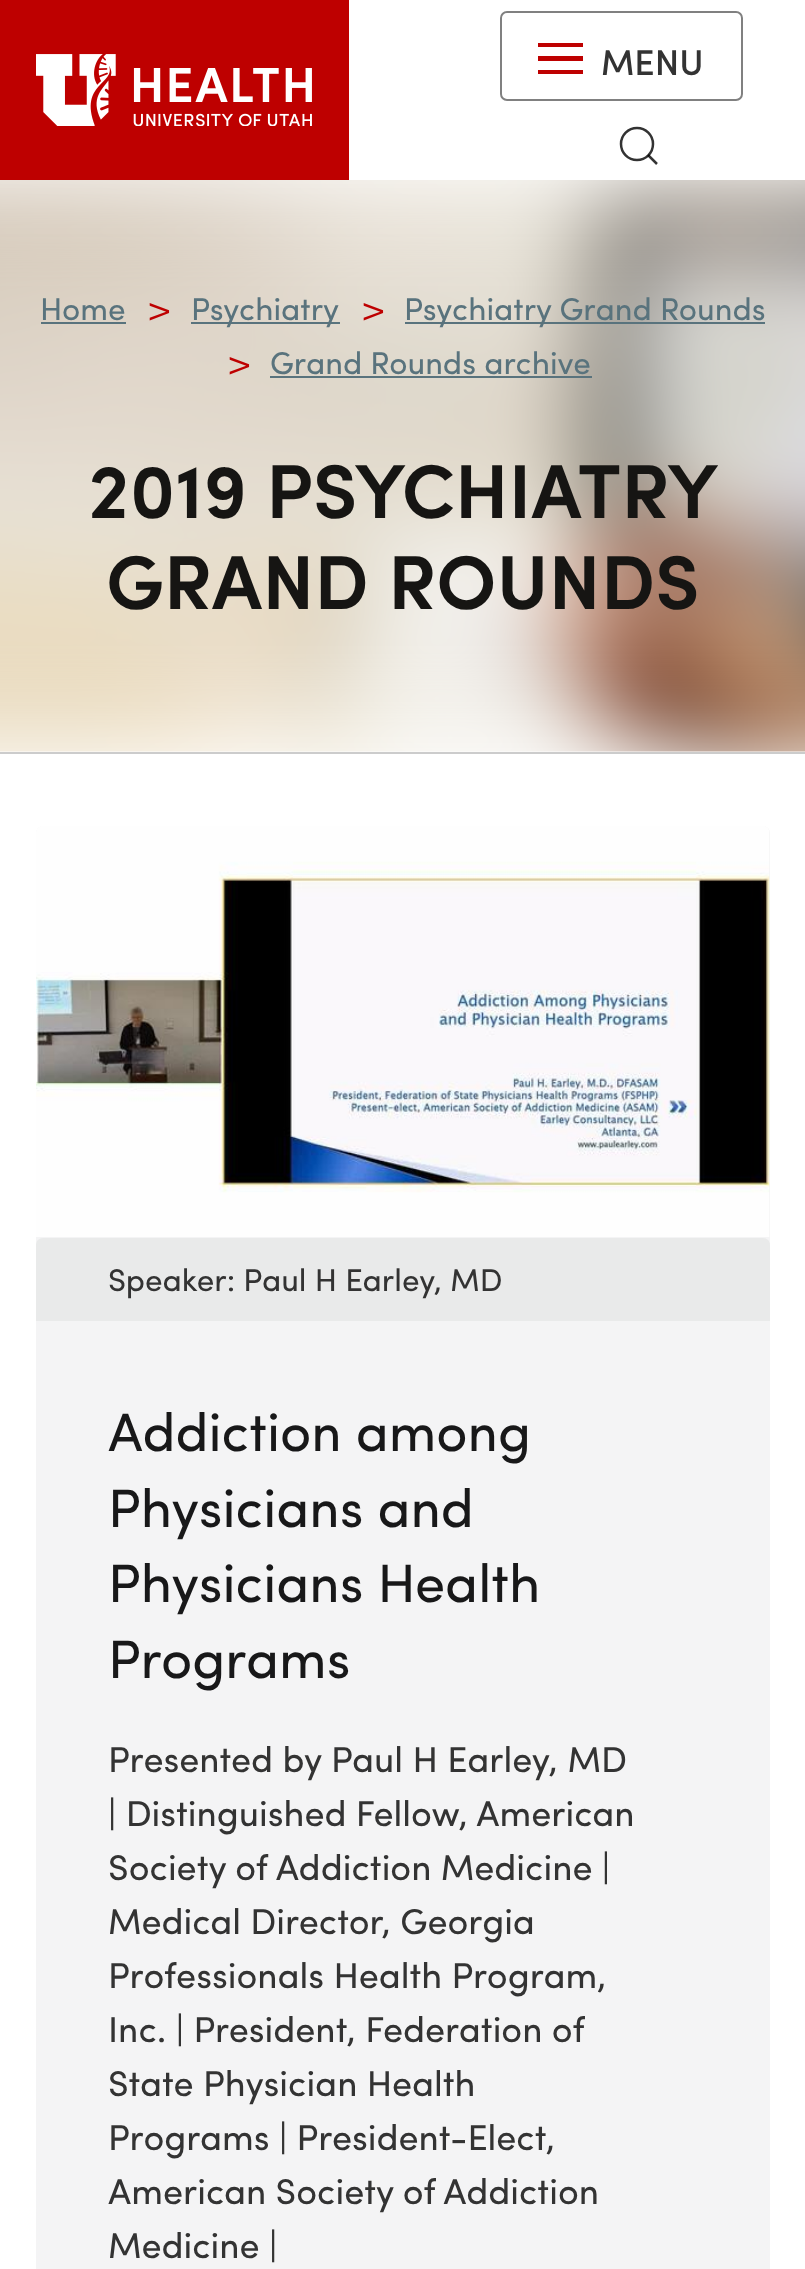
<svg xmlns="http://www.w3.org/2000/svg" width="805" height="2269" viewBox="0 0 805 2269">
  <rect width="100%" height="100%" fill="rgb(255,255,255)"/>
  <rect x="0" y="0" width="349" height="180" fill="rgb(190,0,0)"/>
  <image x="36" y="54" width="276" height="72" href="pic1.png"/>
  <rect x="501" y="12" width="241" height="88" rx="6" fill="none" stroke="rgb(128,128,128)" stroke-width="2"/>
  <rect x="538" y="43" width="45" height="4" fill="rgb(190,0,0)"/>
  <rect x="538" y="56" width="45" height="5" fill="rgb(190,0,0)"/>
  <rect x="538" y="70" width="45" height="4" fill="rgb(190,0,0)"/>
  <text x="601" y="75" font-family="Sofia" font-size="36" font-weight="500" fill="rgb(51,51,51)">MENU</text>
  <circle cx="637" cy="144" r="16" fill="none" stroke="rgb(51,51,51)" stroke-width="2.5"/>
  <path d="M648 155L657 164Z" fill="none" stroke="rgba(0,0,0,0.8)" stroke-width="2.5"/>
  <rect x="0" y="752" width="805" height="2" fill="rgb(204,204,204)"/>
  <image x="0" y="180" width="805" height="572" href="pic2.png"/>
  <text x="40" y="320" font-family="Sofia" font-size="31.5" fill="rgb(89,115,125)">Home</text>
  <rect x="41" y="322" width="85" height="2" fill="rgb(89,115,125)"/>
  <text x="147" y="322" font-family="Sofia" font-size="38" font-weight="300" letter-spacing="-12" fill="rgb(190,0,0)">&gt;</text>
  <rect x="191" y="322" width="149" height="2" fill="rgb(89,115,125)"/>
  <text x="191" y="320" font-family="Sofia" font-size="31.5" fill="rgb(89,115,125)">Psychiatry</text>
  <text x="361" y="322" font-family="Sofia" font-size="38" font-weight="300" letter-spacing="-12" fill="rgb(190,0,0)">&gt;</text>
  <rect x="405" y="322" width="360" height="2" fill="rgb(89,115,125)"/>
  <text x="404" y="320" font-family="Sofia" font-size="31.5" fill="rgb(89,115,125)">Psychiatry Grand Rounds</text>
  <text x="227" y="376" font-family="Sofia" font-size="38" font-weight="300" letter-spacing="-12" fill="rgb(190,0,0)">&gt;</text>
  <text x="270" y="374" font-family="Sofia" font-size="31.5" fill="rgb(89,115,125)">Grand Rounds archive</text>
  <rect x="270" y="376" width="322" height="2" fill="rgb(89,115,125)"/>
  <g font-family="Sofia" font-size="76.5" font-weight="600" fill="rgb(22,21,19)">
    <text x="88" y="518">2019 PSYCHIATRY</text>
    <text x="106" y="609">GRAND ROUNDS</text>
  </g>
  <rect x="36" y="826" width="734" height="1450" rx="7" fill="rgb(244,244,245)"/>
  <image x="36" y="826" width="734" height="411" href="pic3.png"/>
  <path d="M43 1238H763C767 1238 770 1241 770 1245V1321H36V1245C36 1241 39 1238 43 1238Z" fill="rgb(233,234,234)"/>
  <text x="108" y="1291" font-family="Sofia" font-size="31.5" fill="rgb(51,51,51)">Speaker: Paul H Earley, MD</text>
  <g font-family="Sofia" font-size="54" fill="rgb(24,24,25)">
    <text>
      <tspan x="108" y="1451">Addiction among</tspan>
      <tspan x="108" y="1527">Physicians and</tspan>
      <tspan x="108" y="1602">Physicians Health</tspan>
      <tspan x="108" y="1678">Programs</tspan>
    </text>
  </g>
  <g font-family="Sofia" font-size="36" fill="rgb(51,51,51)">
    <text>
      <tspan x="108" y="1772">Presented by Paul H Earley, MD</tspan>
      <tspan x="108" y="1826">| Distinguished Fellow, American</tspan>
      <tspan x="108" y="1880">Society of Addiction Medicine |</tspan>
      <tspan x="108" y="1934">Medical Director, Georgia</tspan>
      <tspan x="108" y="1988">Professionals Health Program,</tspan>
      <tspan x="108" y="2042">Inc. | President, Federation of</tspan>
      <tspan x="108" y="2096">State Physician Health</tspan>
      <tspan x="108" y="2150">Programs | President-Elect,</tspan>
      <tspan x="108" y="2204">American Society of Addiction</tspan>
      <tspan x="108" y="2258">Medicine |</tspan>
    </text>
  </g>
</svg>
